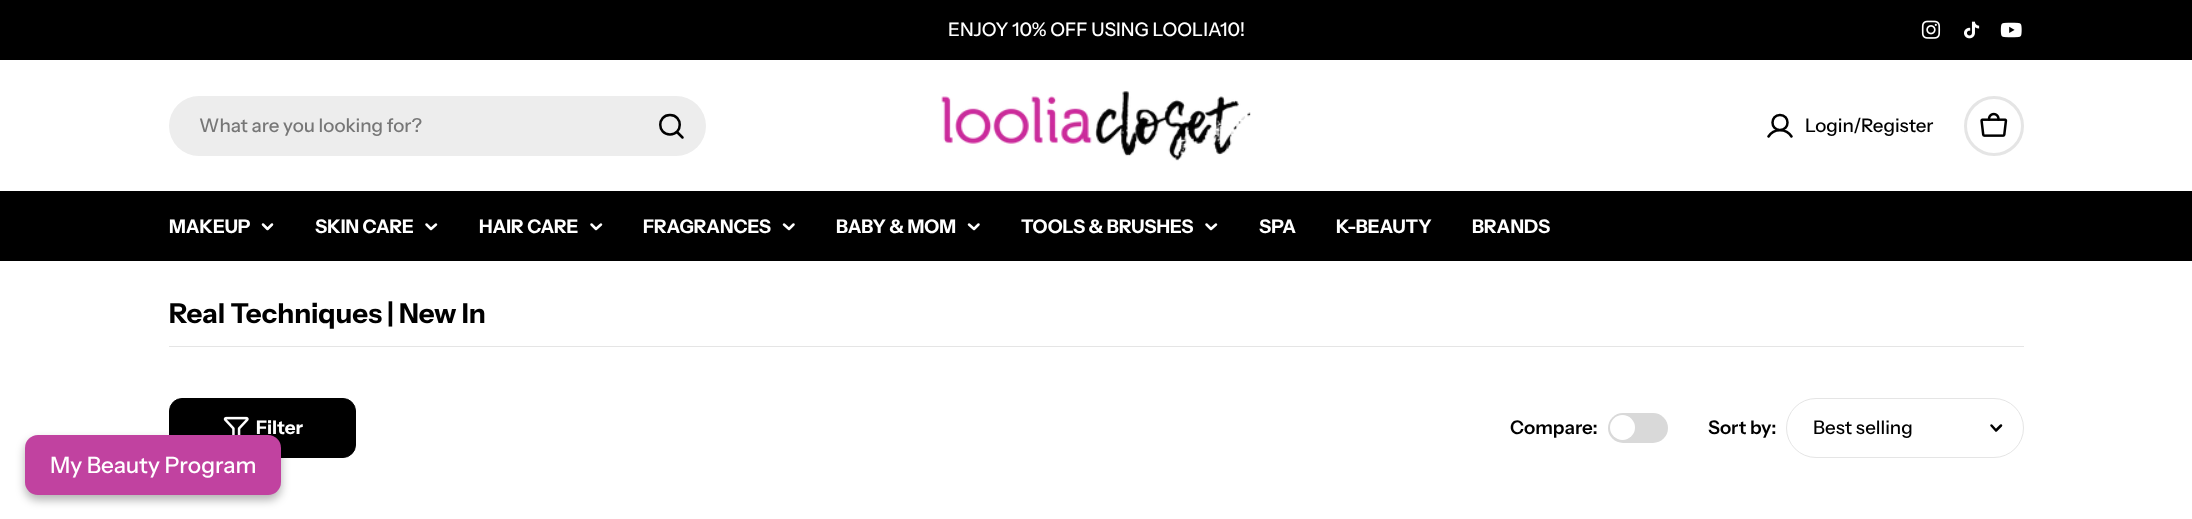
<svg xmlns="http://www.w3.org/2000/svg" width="2192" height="519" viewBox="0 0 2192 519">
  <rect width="100%" height="100%" fill="rgb(255,255,255)"/>
  <rect x="0" y="0" width="2192" height="60" fill="rgb(0,0,0)"/>
  <text x="948" y="36" font-family="Instrument Sans" font-size="18.75" font-weight="500" fill="rgb(255,255,255)">ENJOY 10% OFF USING LOOLIA10!</text>
  <image x="1921" y="20" width="20" height="19" href="pic1.png"/>
  <image x="1964" y="21" width="16" height="18" href="pic2.png"/>
  <image x="2000" y="22" width="22" height="16" href="pic3.png"/>
  <rect x="169" y="96" width="537" height="60" rx="30" fill="rgb(237,237,237)"/>
  <text x="199" y="132" font-family="Instrument Sans" font-size="18.75" font-weight="500" fill="rgb(119,119,119)">What are you looking for?</text>
  <path d="M670 134.5C683 134.5 683 115 670 115C657 115 657 134.5 670 134.5ZM677 132L682.5 137.5" fill="none" stroke="rgb(0,0,0)" stroke-width="2.5" stroke-linecap="round" stroke-linejoin="round"/>
  <image x="941" y="91" width="310" height="70" href="pic4.png"/>
  <path d="M1780 130C1790 130 1790 115 1780 115C1770 115 1770 130 1780 130ZM1768.5 136.5C1773.5 128 1786.5 128 1791.5 136.5" fill="none" stroke="rgb(0,0,0)" stroke-width="2.5" stroke-linecap="round" stroke-linejoin="round"/>
  <text x="1805" y="132" font-family="Instrument Sans" font-size="18.75" font-weight="500" fill="rgb(0,0,0)">Login/Register</text>
  <circle cx="1994" cy="126" r="28.5" fill="none" stroke="rgb(229,229,229)" stroke-width="3"/>
  <image x="1980" y="112" width="28" height="25" href="pic5.png"/>
  <rect x="0" y="191" width="2192" height="70" fill="rgb(0,0,0)"/>
  <text x="169" y="233" font-family="Instrument Sans" font-size="18.75" font-weight="bold" fill="rgb(255,255,255)">MAKEUP</text>
  <path d="M272 224.5L267.5 229L263 224.5" fill="none" stroke="rgb(255,255,255)" stroke-width="2.5" stroke-linecap="round" stroke-linejoin="round"/>
  <text x="315" y="233" font-family="Instrument Sans" font-size="18.75" font-weight="bold" fill="rgb(255,255,255)">SKIN CARE</text>
  <path d="M436 224.5L431 229L426.5 224.5" fill="none" stroke="rgb(255,255,255)" stroke-width="2.5" stroke-linecap="round" stroke-linejoin="round"/>
  <text x="479" y="233" font-family="Instrument Sans" font-size="18.75" font-weight="bold" fill="rgb(255,255,255)">HAIR CARE</text>
  <path d="M601 224.5L596 229L591.5 224.5" fill="none" stroke="rgb(255,255,255)" stroke-width="2.5" stroke-linecap="round" stroke-linejoin="round"/>
  <text x="643" y="233" font-family="Instrument Sans" font-size="18.75" font-weight="bold" fill="rgb(255,255,255)">FRAGRANCES</text>
  <path d="M793.5 224.5L789 229L784 224.5" fill="none" stroke="rgb(255,255,255)" stroke-width="2.5" stroke-linecap="round" stroke-linejoin="round"/>
  <text x="836" y="233" font-family="Instrument Sans" font-size="18.75" font-weight="bold" fill="rgb(255,255,255)">BABY &amp; MOM</text>
  <path d="M978.5 224.5L974 229L969 224.5" fill="none" stroke="rgb(255,255,255)" stroke-width="2.5" stroke-linecap="round" stroke-linejoin="round"/>
  <text x="1021" y="233" font-family="Instrument Sans" font-size="18.75" font-weight="bold" fill="rgb(255,255,255)">TOOLS &amp; BRUSHES</text>
  <path d="M1216 224.5L1211 229L1206.5 224.5" fill="none" stroke="rgb(255,255,255)" stroke-width="2.5" stroke-linecap="round" stroke-linejoin="round"/>
  <g font-family="Instrument Sans" font-size="18.75" font-weight="bold" fill="rgb(255,255,255)">
    <text x="1259" y="233">SPA</text>
    <text x="1336" y="233">K-BEAUTY</text>
    <text x="1472" y="233">BRANDS</text>
  </g>
  <text x="169" y="323" font-family="Instrument Sans" font-size="27.5" font-weight="bold" fill="rgb(0,0,0)">Real Techniques | New In</text>
  <rect x="169" y="346" width="1855" height="1" fill="rgb(229,229,229)"/>
  <rect x="169.5" y="398.5" width="186" height="59" rx="12.5" fill="rgb(0,0,0)" stroke="rgb(0,0,0)"/>
  <image x="223" y="416" width="26" height="19" href="pic6.png"/>
  <text x="256" y="434" font-family="Instrument Sans" font-size="18.75" font-weight="bold" fill="rgb(255,255,255)">Filter</text>
  <text x="1510" y="434" font-family="Instrument Sans" font-size="18.75" font-weight="600" fill="rgb(0,0,0)">Compare:</text>
  <rect x="1608" y="413" width="60" height="30" rx="15" fill="rgb(217,217,217)"/>
  <circle cx="1622.5" cy="427.5" r="12.5" fill="rgb(255,255,255)"/>
  <text x="1708" y="434" font-family="Instrument Sans" font-size="18.75" font-weight="600" fill="rgb(0,0,0)">Sort by:</text>
  <rect x="1786.5" y="398.5" width="237" height="59" rx="29.5" fill="none" stroke="rgb(229,229,229)"/>
  <text x="1813" y="434" font-family="Instrument Sans" font-size="18.75" font-weight="500" fill="rgb(0,0,0)">Best selling</text>
  <path d="M2001 425.5L1996 430.5L1991.5 425.5" fill="none" stroke="rgb(0,0,0)" stroke-width="2.5" stroke-linecap="round" stroke-linejoin="round"/>
  <rect x="25" y="440" width="256" height="60" rx="13" fill="rgba(0,0,0,0.3)" filter="blur(5px)"/>
  <rect x="25" y="435" width="256" height="60" rx="13" fill="rgb(193,66,160)"/>
  <text x="50" y="473" font-family="Instrument Sans" font-size="22.5" font-weight="500" fill="rgb(255,255,255)">My Beauty Program</text>
</svg>
